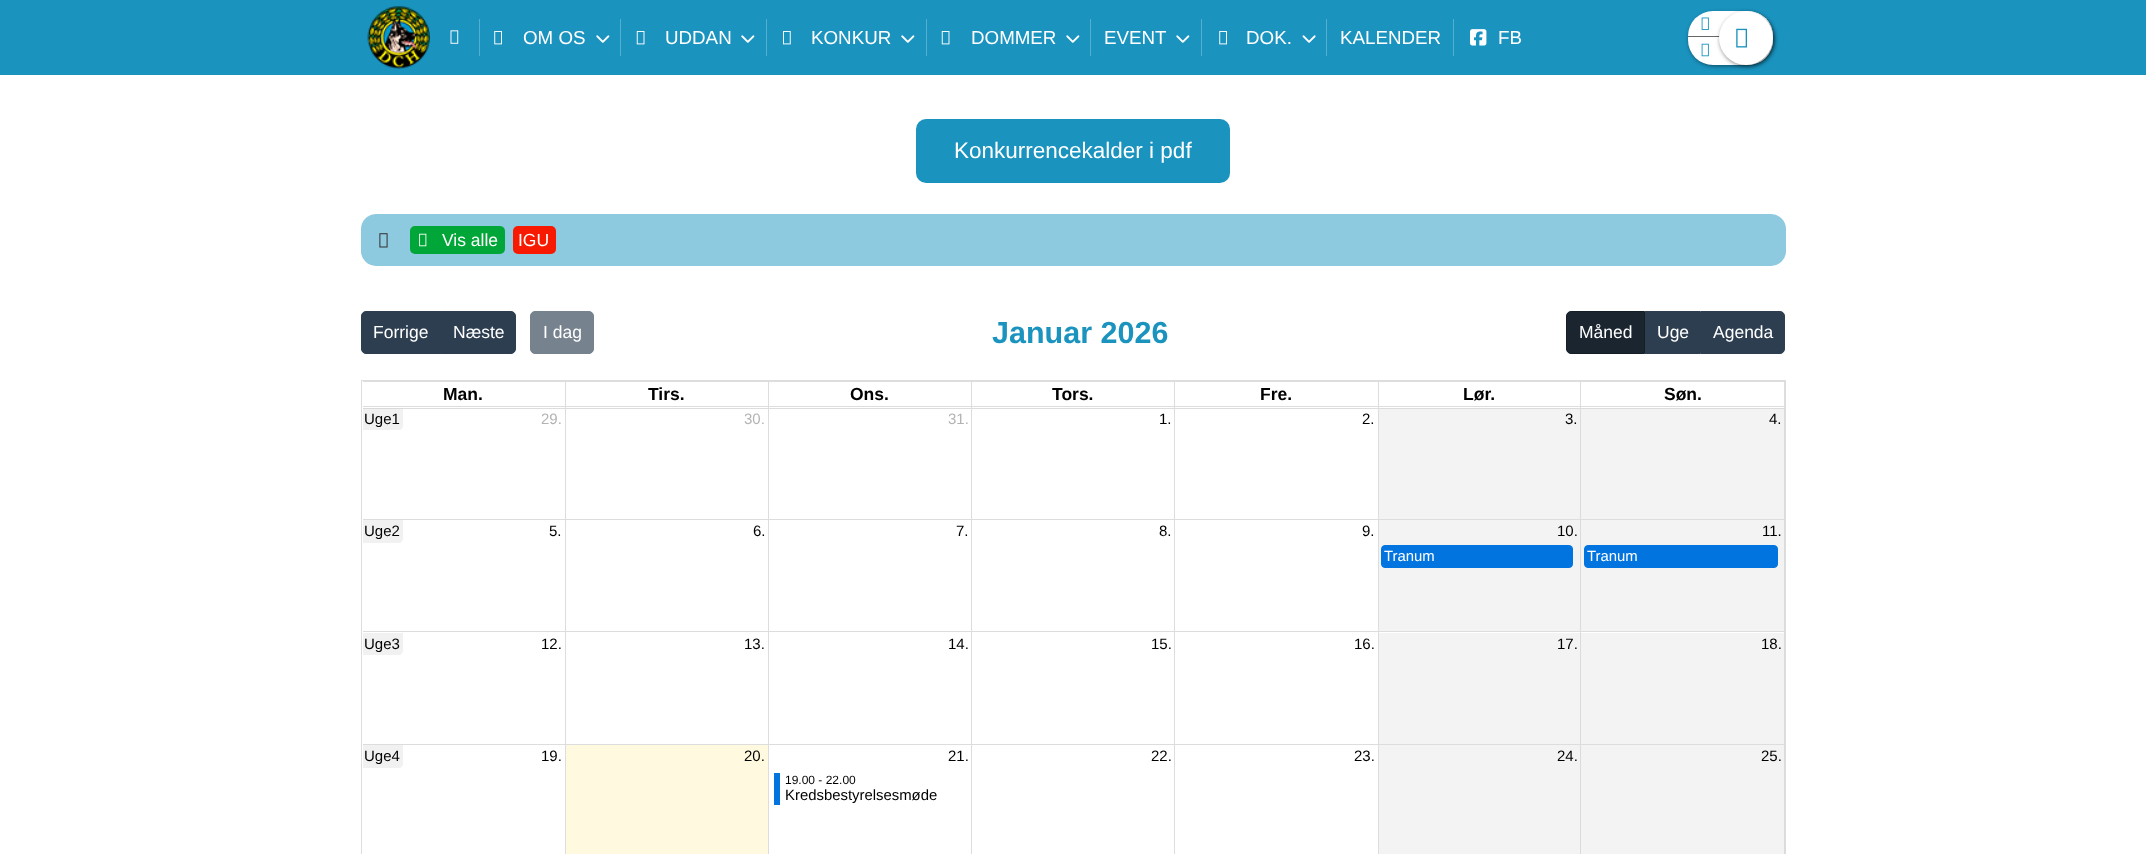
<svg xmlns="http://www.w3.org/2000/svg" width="2146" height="854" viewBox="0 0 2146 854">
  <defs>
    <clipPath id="clip1"><rect x="1688" y="11" width="85" height="54" rx="25"/></clipPath>
  </defs>
  <rect width="100%" height="100%" fill="rgb(255,255,255)"/>
  <rect x="0" y="0" width="2146" height="75" fill="rgb(26,147,191)"/>
  <image x="367" y="6" width="63" height="63" href="pic1.png"/>
  <image x="450" y="30" width="9" height="14" href="pic2.png"/>
  <rect x="479" y="19" width="1" height="37" fill="rgb(83,174,207)"/>
  <image x="494" y="31" width="8" height="14" href="pic3.png"/>
  <text x="523" y="44" font-family="Liberation Sans" font-size="18.75" fill="rgb(255,255,255)">OM OS</text>
  <image x="596" y="35" width="14" height="8" href="pic4.png"/>
  <rect x="620" y="19" width="1" height="37" fill="rgb(83,174,207)"/>
  <image x="636" y="31" width="9" height="14" href="pic5.png"/>
  <text x="665" y="44" font-family="Liberation Sans" font-size="18.75" fill="rgb(255,255,255)">UDDAN</text>
  <image x="741" y="35" width="14" height="8" href="pic4.png"/>
  <rect x="766" y="19" width="1" height="37" fill="rgb(83,174,207)"/>
  <image x="783" y="31" width="8" height="14" href="pic6.png"/>
  <text x="811" y="44" font-family="Liberation Sans" font-size="18.75" fill="rgb(255,255,255)">KONKUR</text>
  <image x="901" y="35" width="14" height="8" href="pic4.png"/>
  <rect x="926" y="19" width="1" height="37" fill="rgb(83,174,207)"/>
  <image x="941" y="31" width="9" height="14" href="pic5.png"/>
  <text x="971" y="44" font-family="Liberation Sans" font-size="18.75" fill="rgb(255,255,255)">DOMMER</text>
  <image x="1066" y="35" width="14" height="8" href="pic4.png"/>
  <rect x="1090" y="19" width="1" height="37" fill="rgb(83,174,207)"/>
  <text x="1104" y="44" font-family="Liberation Sans" font-size="18.75" fill="rgb(255,255,255)">EVENT</text>
  <image x="1176" y="35" width="14" height="8" href="pic4.png"/>
  <rect x="1201" y="19" width="1" height="37" fill="rgb(83,174,207)"/>
  <image x="1219" y="31" width="8" height="14" href="pic3.png"/>
  <text x="1246" y="44" font-family="Liberation Sans" font-size="18.75" fill="rgb(255,255,255)">DOK.</text>
  <image x="1302" y="35" width="14" height="8" href="pic7.png"/>
  <rect x="1326" y="19" width="1" height="37" fill="rgb(83,174,207)"/>
  <text x="1340" y="44" font-family="Liberation Sans" font-size="18.75" fill="rgb(255,255,255)">KALENDER</text>
  <rect x="1453" y="19" width="1" height="37" fill="rgb(83,174,207)"/>
  <image x="1470" y="29" width="17" height="17" href="pic8.png"/>
  <text x="1498" y="44" font-family="Liberation Sans" font-size="18.75" fill="rgb(255,255,255)">FB</text>
  <rect x="1689" y="13" width="85" height="53" rx="25" fill="rgba(0,0,0,0.5)" filter="blur(2px)"/>
  <rect x="1688" y="11" width="85" height="54" rx="25" fill="rgb(255,255,255)"/>
  <rect x="1688" y="36" width="32" height="1" fill="rgb(102,102,102)"/>
  <image x="1701" y="17" width="8" height="13" href="pic9.png"/>
  <g clip-path="url(#clip1)">
    <rect x="1730" y="13" width="43" height="25" fill="rgb(255,255,255)"/>
  </g>
  <image x="1701" y="43" width="8" height="14" href="pic10.png"/>
  <g clip-path="url(#clip1)">
    <rect x="1730" y="38" width="43" height="25" fill="rgb(255,255,255)"/>
  </g>
  <rect x="1720" y="13" width="54" height="53" rx="26.5" fill="rgba(0,0,0,0.5)" filter="blur(2px)"/>
  <circle cx="1746" cy="38" r="27" fill="rgb(255,255,255)"/>
  <image x="1736" y="28" width="11" height="20" href="pic11.png"/>
  <rect x="1379" y="745" width="405" height="109" fill="rgb(243,243,243)"/>
  <rect x="1379" y="633" width="405" height="111" fill="rgb(243,243,243)"/>
  <rect x="1379" y="520" width="405" height="111" fill="rgb(243,243,243)"/>
  <rect x="1379" y="409" width="405" height="110" fill="rgb(243,243,243)"/>
  <rect x="916" y="119" width="314" height="64" rx="10" fill="rgb(26,147,191)"/>
  <text x="954" y="158" font-family="Liberation Sans" font-size="22.5" fill="rgb(255,255,255)">Konkurrencekalder i pdf</text>
  <rect x="361" y="214" width="1425" height="52" rx="15" fill="rgb(141,201,223)"/>
  <image x="379" y="233" width="9" height="15" href="pic12.png"/>
  <rect x="410" y="226" width="95" height="28" rx="5" fill="rgb(0,166,55)"/>
  <image x="419" y="233" width="8" height="14" href="pic13.png"/>
  <text x="442" y="246" font-family="Liberation Sans" font-size="17.5" fill="rgb(255,255,255)">Vis alle</text>
  <rect x="513" y="226" width="43" height="28" rx="5" fill="rgb(247,26,1)"/>
  <text x="518" y="246" font-family="Liberation Sans" font-size="17.5" fill="rgb(255,255,255)">IGU</text>
  <path d="M366 311.5H440.5V353.5H366C363.5 353.5 361.5 351.5 361.5 349V316C361.5 313.5 363.5 311.5 366 311.5Z" fill="rgb(44,62,80)" stroke="rgb(44,62,80)"/>
  <text x="373" y="338" font-family="Liberation Sans" font-size="17.5" fill="rgb(255,255,255)">Forrige</text>
  <path d="M440.5 311.5H511C513.5 311.5 515.5 313.5 515.5 316V349C515.5 351.5 513.5 353.5 511 353.5H440.5Z" fill="rgb(44,62,80)" stroke="rgb(44,62,80)"/>
  <text x="453" y="338" font-family="Liberation Sans" font-size="17.5" fill="rgb(255,255,255)">Næste</text>
  <rect x="530.5" y="311.5" width="63" height="42" rx="4.5" fill="rgb(118,130,141)" stroke="rgb(118,130,141)"/>
  <text x="543" y="338" font-family="Liberation Sans" font-size="17.5" fill="rgb(255,255,255)">I dag</text>
  <text x="992" y="343" font-family="Liberation Sans" font-size="30.5" font-weight="bold" fill="rgb(26,147,191)">Januar 2026</text>
  <path d="M1571 311.5H1644.5V353.5H1571C1568.5 353.5 1566.5 351.5 1566.5 349V316C1566.5 313.5 1568.5 311.5 1571 311.5Z" fill="rgb(26,37,47)" stroke="rgb(21,30,39)"/>
  <text x="1579" y="338" font-family="Liberation Sans" font-size="17.5" fill="rgb(255,255,255)">Måned</text>
  <rect x="1645" y="311" width="55" height="43" fill="rgb(44,62,80)"/>
  <text x="1657" y="338" font-family="Liberation Sans" font-size="17.5" fill="rgb(255,255,255)">Uge</text>
  <path d="M1700.5 311.5H1780C1782.5 311.5 1784.5 313.5 1784.5 316V349C1784.5 351.5 1782.5 353.5 1780 353.5H1700.5Z" fill="rgb(44,62,80)" stroke="rgb(44,62,80)"/>
  <text x="1713" y="338" font-family="Liberation Sans" font-size="17.5" fill="rgb(255,255,255)">Agenda</text>
  <rect x="361" y="380" width="1425" height="1" fill="rgb(221,221,221)"/>
  <rect x="361" y="380" width="1" height="474" fill="rgb(221,221,221)"/>
  <rect x="1785" y="381" width="1" height="473" fill="rgb(221,221,221)"/>
  <rect x="1580" y="381" width="205" height="1" fill="rgb(221,221,221)"/>
  <rect x="1784" y="381" width="1" height="27" fill="rgb(221,221,221)"/>
  <rect x="1580" y="406" width="205" height="1" fill="rgb(221,221,221)"/>
  <rect x="1580" y="381" width="1" height="27" fill="rgb(221,221,221)"/>
  <rect x="1378" y="381" width="203" height="1" fill="rgb(221,221,221)"/>
  <rect x="1378" y="406" width="203" height="1" fill="rgb(221,221,221)"/>
  <rect x="1378" y="381" width="1" height="27" fill="rgb(221,221,221)"/>
  <rect x="1174" y="381" width="205" height="1" fill="rgb(221,221,221)"/>
  <rect x="1174" y="406" width="205" height="1" fill="rgb(221,221,221)"/>
  <rect x="1174" y="381" width="1" height="27" fill="rgb(221,221,221)"/>
  <rect x="971" y="381" width="204" height="1" fill="rgb(221,221,221)"/>
  <rect x="971" y="406" width="204" height="1" fill="rgb(221,221,221)"/>
  <rect x="971" y="381" width="1" height="27" fill="rgb(221,221,221)"/>
  <rect x="768" y="381" width="205" height="1" fill="rgb(221,221,221)"/>
  <rect x="768" y="406" width="205" height="1" fill="rgb(221,221,221)"/>
  <rect x="768" y="381" width="1" height="27" fill="rgb(221,221,221)"/>
  <rect x="565" y="381" width="204" height="1" fill="rgb(221,221,221)"/>
  <rect x="565" y="406" width="204" height="1" fill="rgb(221,221,221)"/>
  <rect x="565" y="381" width="1" height="27" fill="rgb(221,221,221)"/>
  <rect x="363" y="381" width="203" height="1" fill="rgb(221,221,221)"/>
  <rect x="363" y="406" width="203" height="1" fill="rgb(221,221,221)"/>
  <g font-family="Liberation Sans" font-size="17.5" font-weight="bold" fill="rgb(0,0,0)">
    <text x="443" y="400">Man.</text>
    <text x="648" y="400">Tirs.</text>
    <text x="850" y="400">Ons.</text>
    <text x="1052" y="400">Tors.</text>
    <text x="1260" y="400">Fre.</text>
    <text x="1463" y="400">Lør.</text>
    <text x="1664" y="400">Søn.</text>
  </g>
  <rect x="1378" y="519" width="407" height="1" fill="rgb(221,221,221)"/>
  <rect x="1378" y="631" width="407" height="1" fill="rgb(221,221,221)"/>
  <rect x="1378" y="744" width="407" height="1" fill="rgb(221,221,221)"/>
  <rect x="1378" y="744" width="1" height="110" fill="rgb(221,221,221)"/>
  <rect x="1174" y="744" width="205" height="1" fill="rgb(221,221,221)"/>
  <rect x="1378" y="631" width="1" height="114" fill="rgb(221,221,221)"/>
  <rect x="1174" y="631" width="205" height="1" fill="rgb(221,221,221)"/>
  <rect x="1378" y="519" width="1" height="114" fill="rgb(221,221,221)"/>
  <rect x="1174" y="519" width="205" height="1" fill="rgb(221,221,221)"/>
  <rect x="1378" y="408" width="1" height="112" fill="rgb(221,221,221)"/>
  <rect x="1174" y="408" width="205" height="1" fill="rgb(221,221,221)"/>
  <rect x="1174" y="744" width="1" height="110" fill="rgb(221,221,221)"/>
  <rect x="971" y="744" width="204" height="1" fill="rgb(221,221,221)"/>
  <rect x="1174" y="631" width="1" height="114" fill="rgb(221,221,221)"/>
  <rect x="971" y="631" width="204" height="1" fill="rgb(221,221,221)"/>
  <rect x="1174" y="519" width="1" height="114" fill="rgb(221,221,221)"/>
  <rect x="971" y="519" width="204" height="1" fill="rgb(221,221,221)"/>
  <rect x="1174" y="408" width="1" height="112" fill="rgb(221,221,221)"/>
  <rect x="971" y="408" width="204" height="1" fill="rgb(221,221,221)"/>
  <rect x="971" y="744" width="1" height="110" fill="rgb(221,221,221)"/>
  <rect x="768" y="744" width="205" height="1" fill="rgb(221,221,221)"/>
  <rect x="971" y="631" width="1" height="114" fill="rgb(221,221,221)"/>
  <rect x="768" y="631" width="205" height="1" fill="rgb(221,221,221)"/>
  <rect x="971" y="519" width="1" height="114" fill="rgb(221,221,221)"/>
  <rect x="768" y="519" width="205" height="1" fill="rgb(221,221,221)"/>
  <rect x="971" y="408" width="1" height="112" fill="rgb(221,221,221)"/>
  <rect x="768" y="408" width="205" height="1" fill="rgb(221,221,221)"/>
  <rect x="768" y="744" width="1" height="110" fill="rgb(221,221,221)"/>
  <rect x="565" y="744" width="204" height="1" fill="rgb(221,221,221)"/>
  <rect x="768" y="631" width="1" height="114" fill="rgb(221,221,221)"/>
  <rect x="565" y="631" width="204" height="1" fill="rgb(221,221,221)"/>
  <rect x="768" y="519" width="1" height="114" fill="rgb(221,221,221)"/>
  <rect x="565" y="519" width="204" height="1" fill="rgb(221,221,221)"/>
  <rect x="768" y="408" width="1" height="112" fill="rgb(221,221,221)"/>
  <rect x="565" y="408" width="204" height="1" fill="rgb(221,221,221)"/>
  <rect x="565" y="744" width="1" height="110" fill="rgb(221,221,221)"/>
  <rect x="363" y="744" width="203" height="1" fill="rgb(221,221,221)"/>
  <rect x="565" y="631" width="1" height="114" fill="rgb(221,221,221)"/>
  <rect x="363" y="631" width="203" height="1" fill="rgb(221,221,221)"/>
  <rect x="565" y="519" width="1" height="114" fill="rgb(221,221,221)"/>
  <rect x="363" y="519" width="203" height="1" fill="rgb(221,221,221)"/>
  <rect x="565" y="408" width="1" height="112" fill="rgb(221,221,221)"/>
  <rect x="363" y="408" width="203" height="1" fill="rgb(221,221,221)"/>
  <path d="M363 408H403V426C403 428 401 430 399 430H363Z" fill="rgba(209,209,209,0.3)"/>
  <text x="364" y="424" font-family="Liberation Sans" font-size="15" fill="rgb(0,0,0)">Uge1</text>
  <g font-family="Liberation Sans" font-size="15" fill="rgb(179,179,179)">
    <text x="541" y="424">29.</text>
    <text x="744" y="424">30.</text>
    <text x="948" y="424">31.</text>
  </g>
  <g font-family="Liberation Sans" font-size="15" fill="rgb(0,0,0)">
    <text x="1159" y="424">1.</text>
    <text x="1362" y="424">2.</text>
  </g>
  <rect x="1580" y="408" width="205" height="1" fill="rgb(219,219,219)"/>
  <rect x="1580" y="408" width="1" height="111" fill="rgb(219,219,219)"/>
  <rect x="1379" y="408" width="202" height="1" fill="rgb(219,219,219)"/>
  <text x="1565" y="424" font-family="Liberation Sans" font-size="15" fill="rgb(0,0,0)">3.</text>
  <rect x="1784" y="408" width="1" height="111" fill="rgb(219,219,219)"/>
  <text x="1769" y="424" font-family="Liberation Sans" font-size="15" fill="rgb(0,0,0)">4.</text>
  <path d="M363 520H403V539C403 541 401 543 399 543H363Z" fill="rgb(241,241,241)"/>
  <g font-family="Liberation Sans" font-size="15" fill="rgb(0,0,0)">
    <text x="364" y="536">Uge2</text>
    <text x="549" y="536">5.</text>
    <text x="753" y="536">6.</text>
    <text x="956" y="536">7.</text>
    <text x="1159" y="536">8.</text>
    <text x="1362" y="536">9.</text>
    <text x="1557" y="536">10.</text>
  </g>
  <rect x="1381.5" y="545.5" width="191" height="22" rx="3.5" fill="rgb(1,116,223)" stroke="rgb(1,116,223)"/>
  <text x="1384" y="561" font-family="Liberation Sans" font-size="14.9" fill="rgb(255,255,255)">Tranum</text>
  <rect x="1784" y="631" width="1" height="2" fill="rgb(221,221,221)"/>
  <rect x="1784" y="520" width="1" height="111" fill="rgb(219,219,219)"/>
  <rect x="1580" y="631" width="1" height="2" fill="rgb(221,221,221)"/>
  <rect x="1580" y="520" width="1" height="111" fill="rgb(219,219,219)"/>
  <text x="1762" y="536" font-family="Liberation Sans" font-size="15" fill="rgb(0,0,0)">11.</text>
  <rect x="1584.5" y="545.5" width="193" height="22" rx="3.5" fill="rgb(1,116,223)" stroke="rgb(1,116,223)"/>
  <text x="1587" y="561" font-family="Liberation Sans" font-size="14.9" fill="rgb(255,255,255)">Tranum</text>
  <path d="M363 633H403V651C403 653 401 655 399 655H363Z" fill="rgb(241,241,241)"/>
  <g font-family="Liberation Sans" font-size="15" fill="rgb(0,0,0)">
    <text x="364" y="649">Uge3</text>
    <text x="541" y="649">12.</text>
    <text x="744" y="649">13.</text>
    <text x="948" y="649">14.</text>
    <text x="1151" y="649">15.</text>
    <text x="1354" y="649">16.</text>
    <text x="1557" y="649">17.</text>
  </g>
  <rect x="1784" y="633" width="1" height="111" fill="rgb(219,219,219)"/>
  <rect x="1580" y="633" width="1" height="111" fill="rgb(219,219,219)"/>
  <text x="1761" y="649" font-family="Liberation Sans" font-size="15" fill="rgb(0,0,0)">18.</text>
  <path d="M363 745H403V764C403 766 401 768 399 768H363Z" fill="rgb(241,241,241)"/>
  <g font-family="Liberation Sans" font-size="15" fill="rgb(0,0,0)">
    <text x="364" y="761">Uge4</text>
    <text x="541" y="761">19.</text>
  </g>
  <rect x="566" y="745" width="202" height="109" fill="rgb(255,250,223)"/>
  <g font-family="Liberation Sans" font-size="15" fill="rgb(0,0,0)">
    <text x="744" y="761">20.</text>
    <text x="948" y="761">21.</text>
  </g>
  <rect x="774" y="773" width="6" height="32" fill="rgb(1,116,223)"/>
  <text x="785" y="784" font-family="Liberation Sans" font-size="12" fill="rgb(0,0,0)">19.00 - 22.00</text>
  <text x="785" y="800" font-family="Liberation Sans" font-size="14.9" fill="rgb(0,0,0)">Kredsbestyrelsesmøde</text>
  <g font-family="Liberation Sans" font-size="15" fill="rgb(0,0,0)">
    <text x="1151" y="761">22.</text>
    <text x="1354" y="761">23.</text>
    <text x="1557" y="761">24.</text>
  </g>
  <rect x="1784" y="745" width="1" height="109" fill="rgb(219,219,219)"/>
  <rect x="1580" y="745" width="1" height="109" fill="rgb(219,219,219)"/>
  <text x="1761" y="761" font-family="Liberation Sans" font-size="15" fill="rgb(0,0,0)">25.</text>
</svg>
